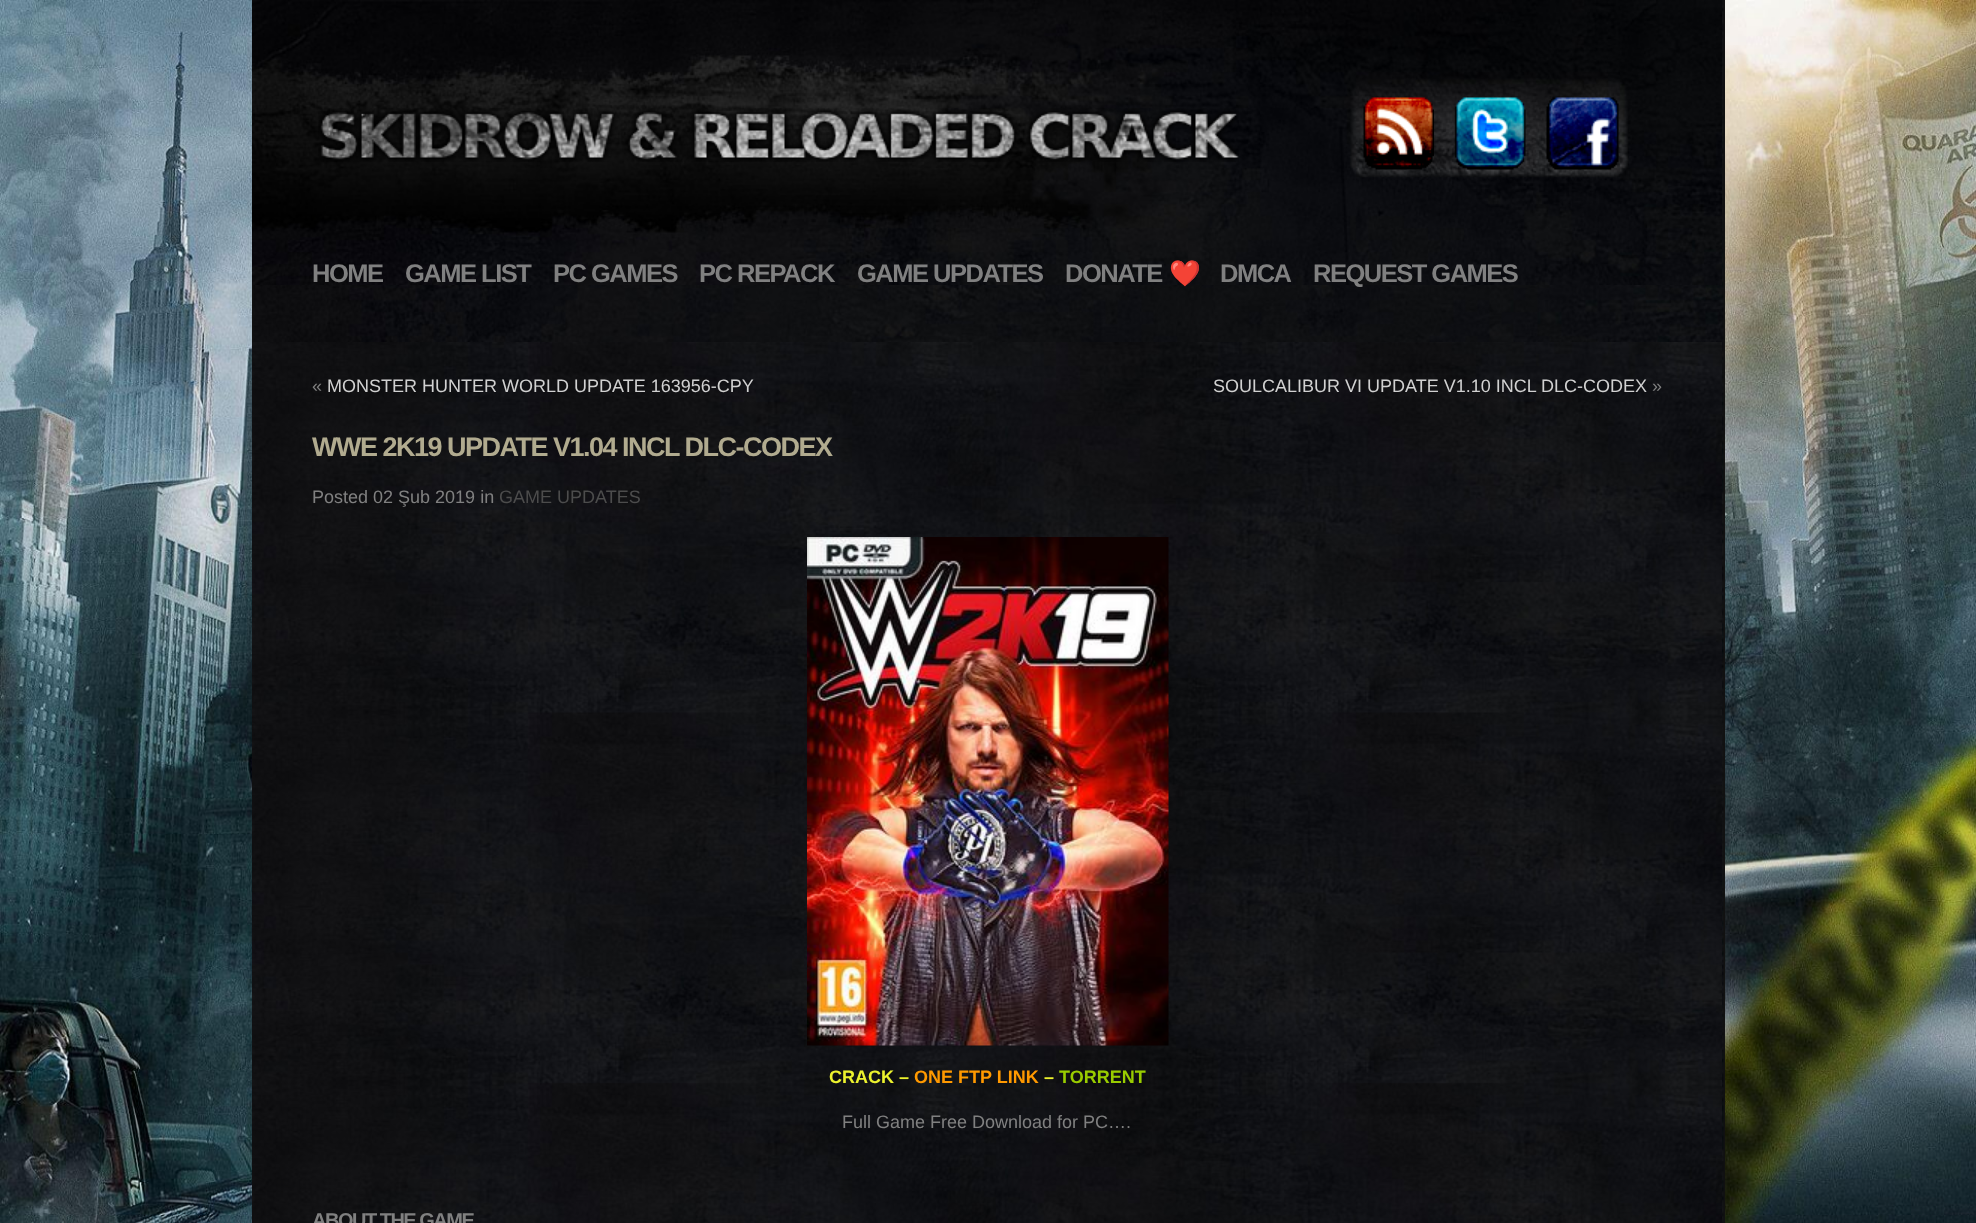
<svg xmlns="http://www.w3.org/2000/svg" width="1976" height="1223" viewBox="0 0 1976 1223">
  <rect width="100%" height="100%" fill="rgb(255,255,255)"/>
  <image x="0" y="0" width="1976" height="1223" href="pic1.png"/>
  <rect x="252" y="0" width="1473" height="1223" fill="rgb(17,17,17)"/>
  <image x="253" y="0" width="1471" height="1223" href="pic2.png"/>
  <image x="252" y="0" width="1470" height="285" href="pic3.png"/>
  <image x="318" y="108" width="921" height="54" href="pic4.png"/>
  <image x="1363" y="97" width="71" height="73" href="pic5.png"/>
  <image x="1454" y="97" width="72" height="73" href="pic6.png"/>
  <image x="1546" y="97" width="73" height="73" href="pic7.png"/>
  <g font-family="Liberation Sans" font-size="25.5" font-weight="bold" letter-spacing="-1.5" fill="rgb(128,128,128)">
    <text x="312" y="282">HOME</text>
    <text x="405" y="282">GAME LIST</text>
    <text x="553" y="282">PC GAMES</text>
    <text x="699" y="282">PC REPACK</text>
    <text x="857" y="282">GAME UPDATES</text>
    <text x="1065" y="282">DONATE</text>
  </g>
  <text x="1169" y="282" font-family="Noto Color Emoji" font-size="25.5" font-weight="bold" letter-spacing="-1.5" fill="rgb(128,128,128)">❤️</text>
  <g font-family="Liberation Sans" font-size="25.5" font-weight="bold" letter-spacing="-1.5" fill="rgb(128,128,128)">
    <text x="1220" y="282">DMCA</text>
    <text x="1313" y="282">REQUEST GAMES</text>
  </g>
  <image x="252" y="342" width="1470" height="881" href="pic8.png"/>
  <text x="312" y="392" font-family="Liberation Sans" font-size="18" fill="rgb(128,128,128)">«</text>
  <g font-family="Liberation Sans" font-size="18" fill="rgb(209,209,209)">
    <text x="327" y="392">MONSTER HUNTER WORLD UPDATE 163956-CPY</text>
    <text x="1213" y="392">SOULCALIBUR VI UPDATE V1.10 INCL DLC-CODEX</text>
  </g>
  <text x="1652" y="392" font-family="Liberation Sans" font-size="18" fill="rgb(128,128,128)">»</text>
  <text x="312" y="456" font-family="Liberation Sans" font-size="27" font-weight="bold" letter-spacing="-1.5" fill="rgb(177,171,143)">WWE 2K19 UPDATE V1.04 INCL DLC-CODEX</text>
  <text x="312" y="503" font-family="Liberation Sans" font-size="18" fill="rgb(128,128,128)">Posted 02 Şub 2019 in</text>
  <text x="499" y="503" font-family="Liberation Sans" font-size="18" fill="rgb(76,76,76)">GAME UPDATES</text>
  <image x="807" y="537" width="362" height="509" href="pic9.png"/>
  <text x="829" y="1083" font-family="Liberation Sans" font-size="18" font-weight="bold" fill="rgb(236,242,46)">CRACK –</text>
  <text x="914" y="1083" font-family="Liberation Sans" font-size="18" font-weight="bold" fill="rgb(255,153,0)">ONE FTP LINK</text>
  <text x="1044" y="1083" font-family="Liberation Sans" font-size="18" font-weight="bold" fill="rgb(236,242,46)">–</text>
  <text x="1059" y="1083" font-family="Liberation Sans" font-size="18" font-weight="bold" fill="rgb(153,204,0)">TORRENT</text>
  <text x="842" y="1128" font-family="Liberation Sans" font-size="18" fill="rgb(128,128,128)">Full Game Free Download for PC….</text>
  <text x="312" y="1227" font-family="Liberation Sans" font-size="20" font-weight="bold" letter-spacing="-1.5" fill="rgb(128,128,128)">ABOUT THE GAME</text>
</svg>
